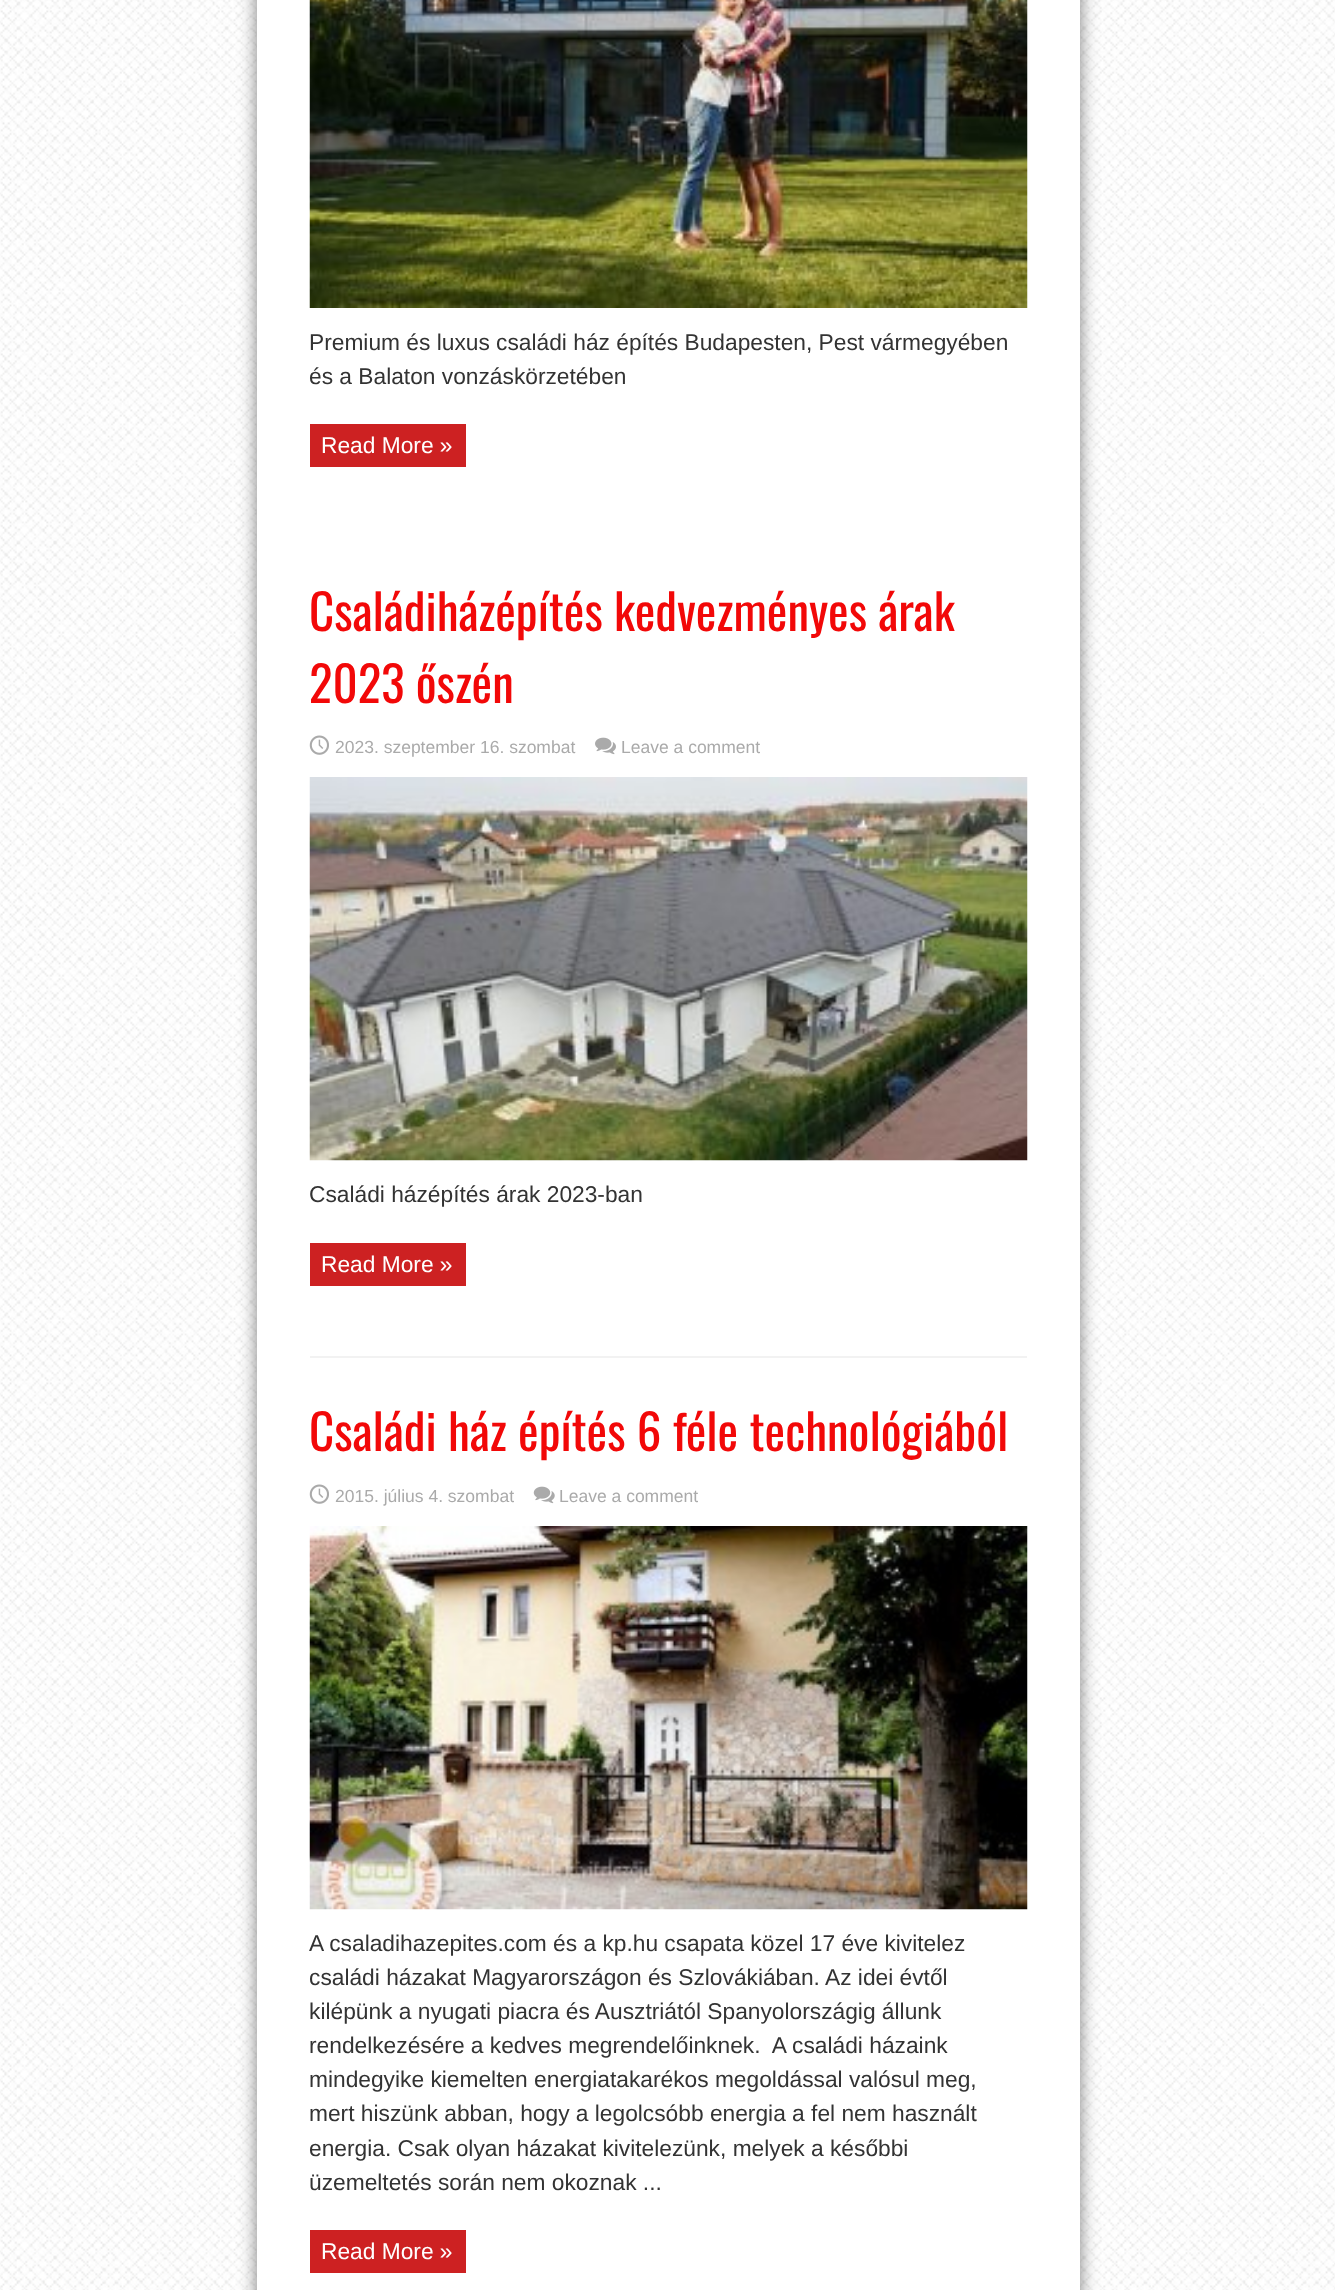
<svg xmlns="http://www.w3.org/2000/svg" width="1335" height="2290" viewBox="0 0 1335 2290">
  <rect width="100%" height="100%" fill="rgb(255,255,255)"/>
  <image x="0" y="0" width="1335" height="2290" href="pic1.png"/>
  <rect x="257" y="-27" width="823" height="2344" fill="rgba(0,0,0,0.5)" filter="blur(9px)"/>
  <rect x="257" y="0" width="823" height="2290" fill="rgb(255,255,255)"/>
  <image x="309" y="0" width="719" height="308" href="pic2.png"/>
  <g font-family="Liberation Sans" font-size="22.75" fill="rgb(51,51,51)">
    <text>
      <tspan x="309" y="350">Premium és luxus családi ház építés Budapesten, Pest vármegyében</tspan>
      <tspan x="309" y="384">és a Balaton vonzáskörzetében</tspan>
    </text>
  </g>
  <rect x="310" y="424" width="156" height="43" fill="rgb(205,33,34)"/>
  <text x="321" y="453" font-family="Liberation Sans" font-size="22.75" fill="rgb(255,255,255)">Read More »</text>
  <g font-family="Oswald" font-size="49" fill="rgb(242,8,8)">
    <text>
      <tspan x="309" y="631">Családiházépítés kedvezményes árak</tspan>
      <tspan x="309" y="703">2023 őszén</tspan>
    </text>
  </g>
  <image x="309" y="735" width="20" height="20" href="pic3.png"/>
  <text x="335" y="753" font-family="Liberation Sans" font-size="17.5" fill="rgb(170,170,170)">2023. szeptember 16. szombat</text>
  <image x="595" y="737" width="21" height="18" href="pic4.png"/>
  <text x="621" y="753" font-family="Liberation Sans" font-size="17.5" fill="rgb(170,170,170)">Leave a comment</text>
  <image x="309" y="777" width="719" height="384" href="pic5.png"/>
  <text x="309" y="1202" font-family="Liberation Sans" font-size="22.75" fill="rgb(51,51,51)">Családi házépítés árak 2023-ban</text>
  <rect x="310" y="1243" width="156" height="43" fill="rgb(205,33,34)"/>
  <text x="321" y="1272" font-family="Liberation Sans" font-size="22.75" fill="rgb(255,255,255)">Read More »</text>
  <rect x="310" y="1356" width="717" height="2" fill="rgb(242,242,242)"/>
  <text x="309" y="1451" font-family="Oswald" font-size="49" fill="rgb(242,8,8)">Családi ház építés 6 féle technológiából</text>
  <image x="309" y="1484" width="20" height="20" href="pic3.png"/>
  <text x="335" y="1502" font-family="Liberation Sans" font-size="17.5" fill="rgb(170,170,170)">2015. július 4. szombat</text>
  <image x="533" y="1486" width="22" height="18" href="pic6.png"/>
  <text x="559" y="1502" font-family="Liberation Sans" font-size="17.5" fill="rgb(170,170,170)">Leave a comment</text>
  <image x="309" y="1526" width="719" height="384" href="pic7.png"/>
  <g font-family="Liberation Sans" font-size="22.75" fill="rgb(51,51,51)">
    <text xml:space="preserve"><tspan x="309" y="1951">A csaladihazepites.com és a kp.hu csapata közel 17 éve kivitelez</tspan><tspan x="309" y="1985">családi házakat Magyarországon és Szlovákiában. Az idei évtől</tspan><tspan x="309" y="2019">kilépünk a nyugati piacra és Ausztriától Spanyolországig állunk</tspan><tspan x="309" y="2053">rendelkezésére a kedves megrendelőinknek.  A családi házaink</tspan><tspan x="309" y="2087">mindegyike kiemelten energiatakarékos megoldással valósul meg,</tspan><tspan x="309" y="2121">mert hiszünk abban, hogy a legolcsóbb energia a fel nem használt</tspan><tspan x="309" y="2156">energia. Csak olyan házakat kivitelezünk, melyek a későbbi</tspan><tspan x="309" y="2190">üzemeltetés során nem okoznak ...</tspan></text>
  </g>
  <rect x="310" y="2230" width="156" height="43" fill="rgb(205,33,34)"/>
  <text x="321" y="2259" font-family="Liberation Sans" font-size="22.75" fill="rgb(255,255,255)">Read More »</text>
</svg>
